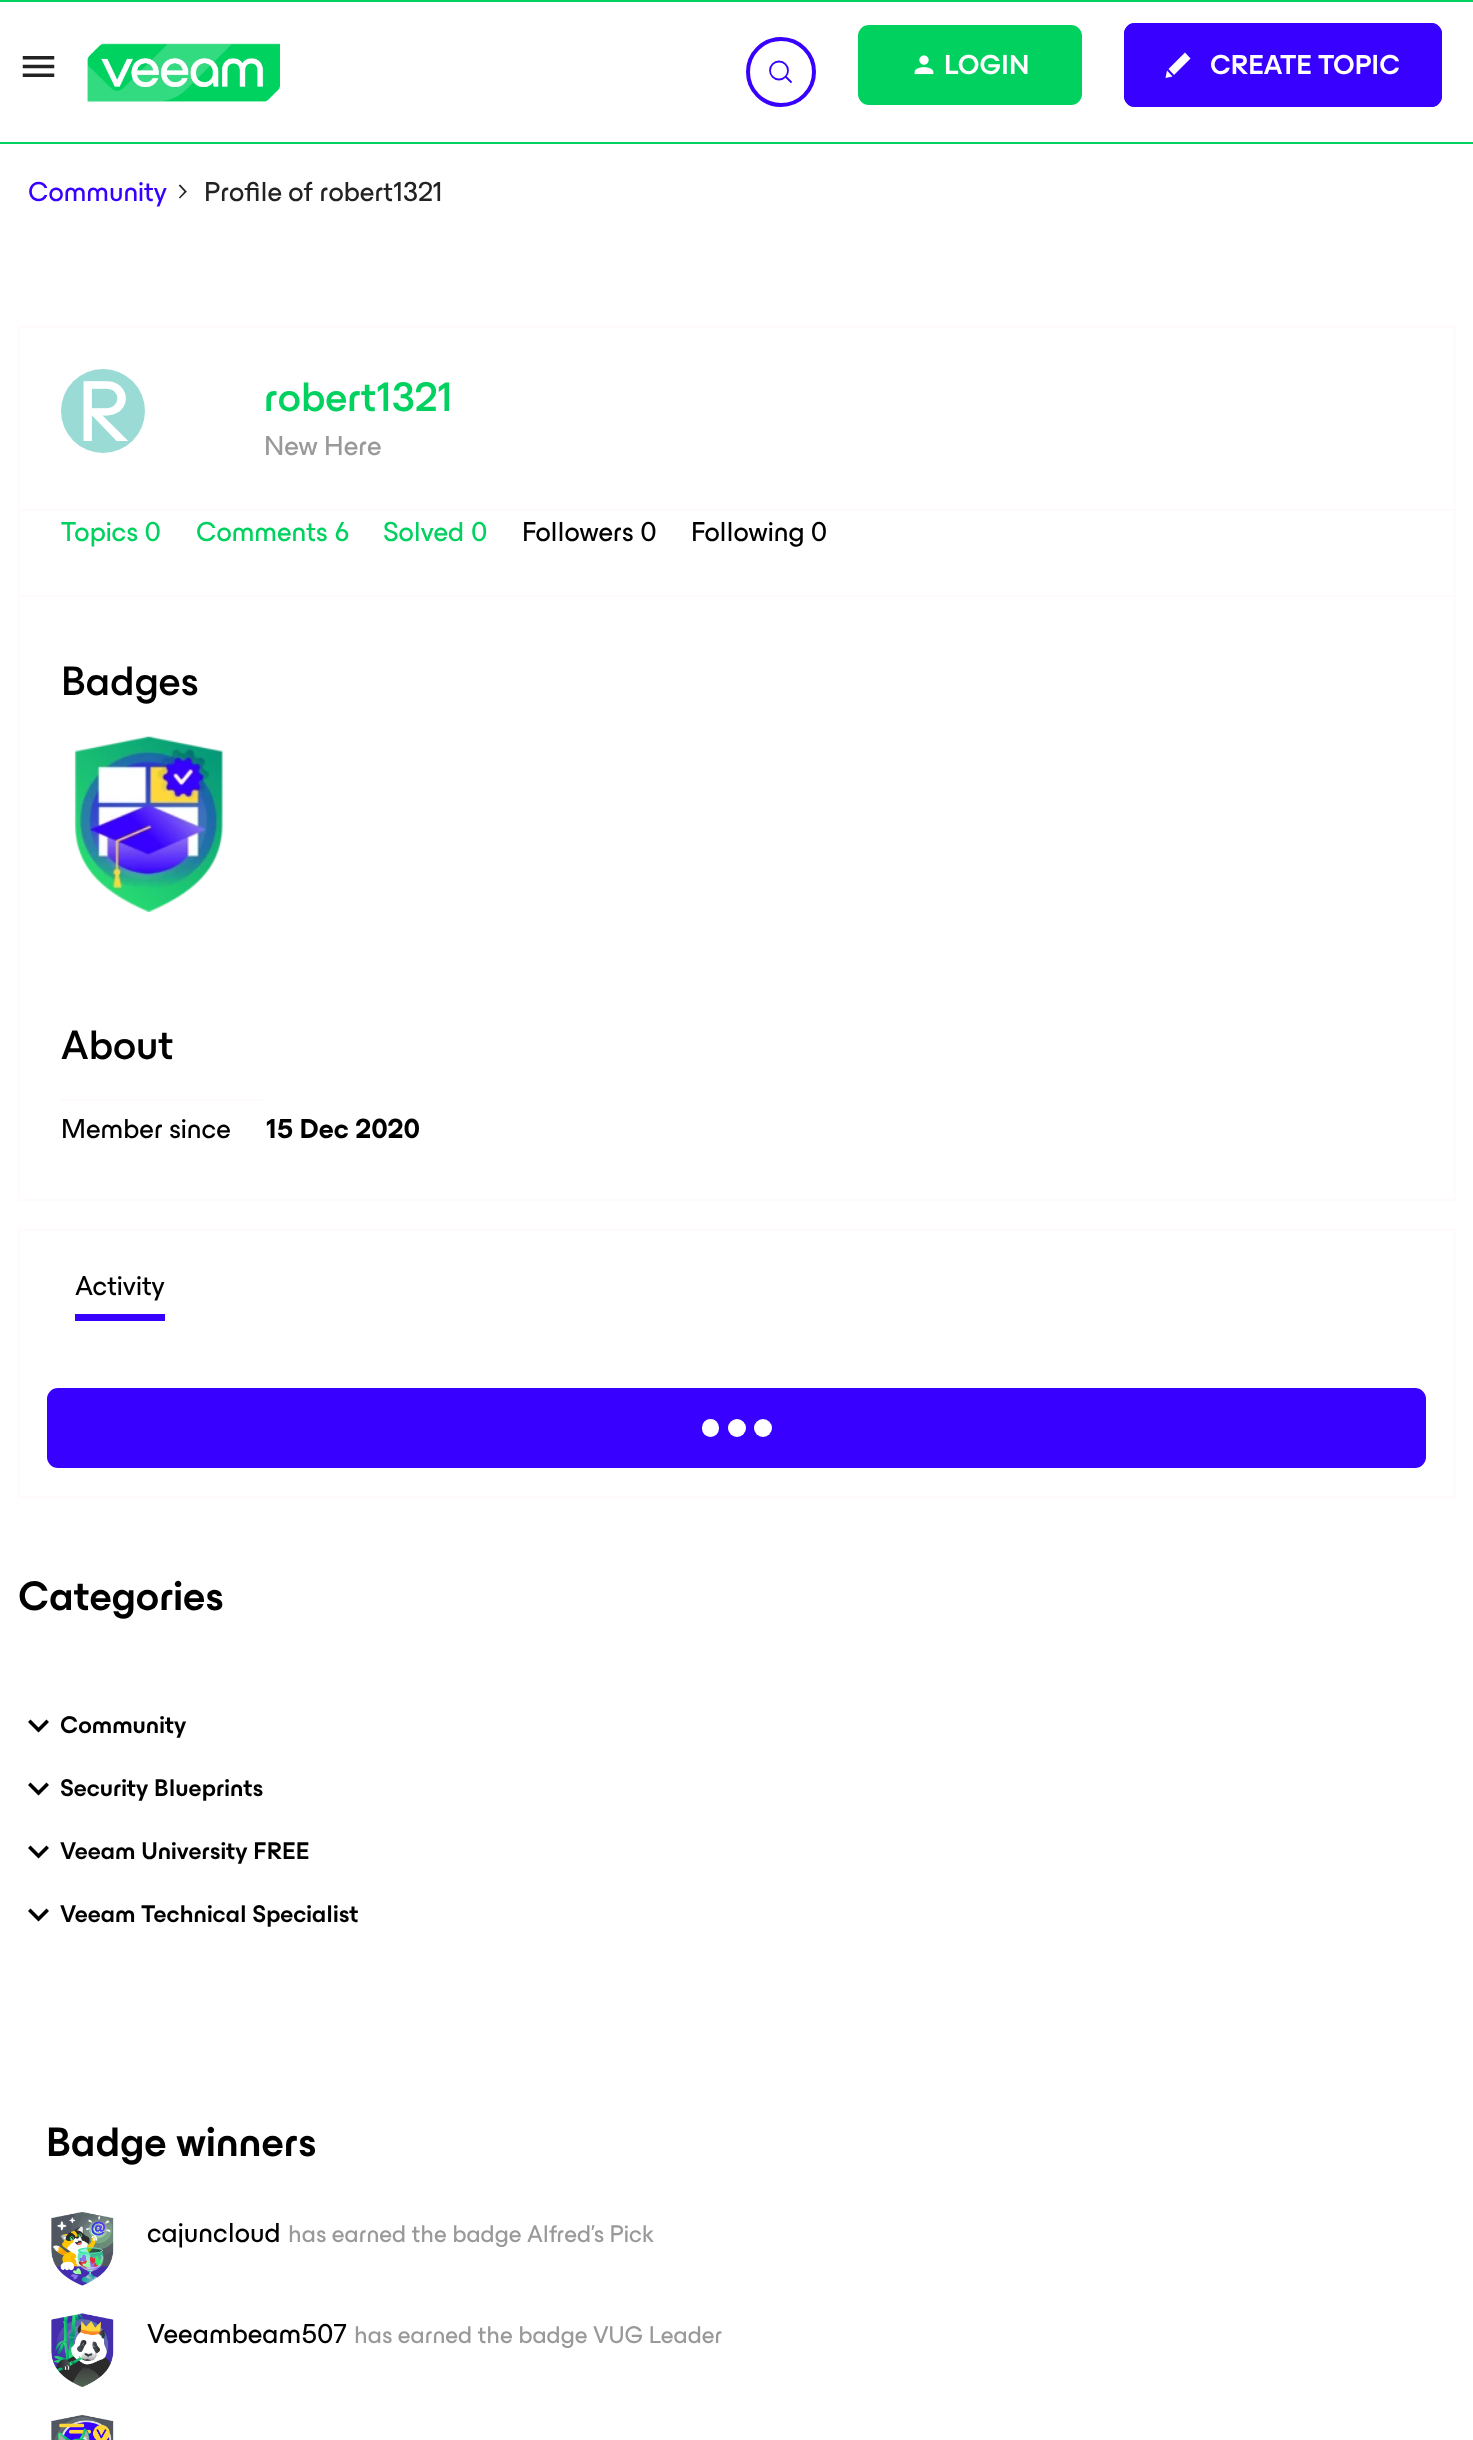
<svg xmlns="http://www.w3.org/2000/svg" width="1473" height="2440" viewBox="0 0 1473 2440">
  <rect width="100%" height="100%" fill="rgb(255,255,255)"/>
  <rect x="0" y="0" width="1473" height="2" fill="rgb(0,209,95)"/>
  <rect x="0" y="142" width="1473" height="2" fill="rgb(0,209,95)"/>
  <image x="22" y="56" width="33" height="21" href="pic1.png"/>
  <image x="87" y="43" width="193" height="59" href="pic2.png"/>
  <circle cx="781" cy="72" r="33" fill="none" stroke="rgb(55,0,255)" stroke-width="4"/>
  <circle cx="779" cy="70.5" r="9" fill="none" stroke="rgb(55,0,255)" stroke-width="1.8"/>
  <path d="M786 77L791 82" fill="none" stroke="rgb(55,0,255)" stroke-width="1.8" stroke-linecap="round"/>
  <rect x="858" y="25" width="224" height="80" rx="11" fill="rgb(0,209,95)"/>
  <image x="914" y="55" width="20" height="20" href="pic3.png"/>
  <text x="944" y="74" font-family="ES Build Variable" font-size="28" font-weight="600" fill="rgb(255,255,255)">LOGIN</text>
  <rect x="1124" y="23" width="318" height="84" rx="11" fill="rgb(55,0,255)"/>
  <path d="M1185 52.5L1168.5 69L1174 75L1190.5 58.5Z" fill="rgb(255,255,255)"/>
  <path d="M1165.5 78L1167 70.5L1172.5 76.5Z" fill="rgb(255,255,255)"/>
  <rect x="1126" y="25" width="314" height="80" rx="9" fill="none" stroke="rgb(55,0,255)" stroke-width="4"/>
  <text x="1210" y="74" font-family="ES Build Variable" font-size="28" font-weight="600" fill="rgb(255,255,255)">CREATE TOPIC</text>
  <text x="28" y="201" font-family="ES Build Variable" font-size="28" fill="rgb(55,0,255)">Community</text>
  <image x="179" y="184" width="8" height="15" href="pic4.png"/>
  <text x="204" y="201" font-family="ES Build Variable" font-size="28" fill="rgb(35,35,35)">Profile of robert1321</text>
  <rect x="19" y="327" width="1436" height="183" fill="none" stroke="rgb(255,251,251)" stroke-width="2"/>
  <circle cx="103" cy="411" r="42" fill="rgb(154,219,213)"/>
  <text x="77" y="441" font-family="ES Build Variable" font-size="88" fill="rgb(255,255,255)">R</text>
  <text x="264" y="411" font-family="ES Build Variable" font-size="42" font-weight="500" fill="rgb(0,209,95)">robert1321</text>
  <text x="264" y="455" font-family="ES Build Variable" font-size="28" fill="rgb(153,153,153)">New Here</text>
  <rect x="1454" y="511" width="2" height="690" fill="rgb(255,251,251)"/>
  <rect x="18" y="595" width="1438" height="2" fill="rgb(255,251,251)"/>
  <rect x="18" y="511" width="2" height="86" fill="rgb(255,251,251)"/>
  <g font-family="ES Build Variable" font-size="28" fill="rgb(0,209,95)">
    <text x="61" y="541">Topics 0</text>
    <text x="196" y="541">Comments 6</text>
    <text x="383" y="541">Solved 0</text>
  </g>
  <g font-family="ES Build Variable" font-size="28" fill="rgb(0,0,0)">
    <text x="522" y="541">Followers 0</text>
    <text x="691" y="541">Following 0</text>
  </g>
  <rect x="18" y="597" width="2" height="371" fill="rgb(255,251,251)"/>
  <text x="61" y="695" font-family="ES Build Variable" font-size="42" font-weight="500" fill="rgb(0,0,0)">Badges</text>
  <image x="74" y="736" width="149" height="176" href="pic5.png"/>
  <rect x="18" y="1199" width="1438" height="2" fill="rgb(255,251,251)"/>
  <rect x="18" y="968" width="2" height="233" fill="rgb(255,251,251)"/>
  <rect x="61" y="1099" width="205" height="2" fill="rgb(255,251,251)"/>
  <text x="61" y="1059" font-family="ES Build Variable" font-size="42" font-weight="500" fill="rgb(0,0,0)">About</text>
  <text x="61" y="1138" font-family="ES Build Variable" font-size="28" fill="rgb(0,0,0)">Member since</text>
  <text x="266" y="1138" font-family="ES Build Variable" font-size="28" font-weight="bold" fill="rgb(0,0,0)">15 Dec 2020</text>
  <rect x="19" y="1230" width="1436" height="267" fill="none" stroke="rgb(255,251,251)" stroke-width="2"/>
  <rect x="75" y="1314" width="90" height="7" fill="rgb(55,0,255)"/>
  <text x="75" y="1295" font-family="ES Build Variable" font-size="28" fill="rgb(0,0,0)">Activity</text>
  <rect x="49" y="1390" width="1375" height="76" rx="9" fill="rgb(55,0,255)" stroke="rgb(55,0,255)" stroke-width="4"/>
  <circle cx="737" cy="1428" r="9" fill="rgb(255,255,255)"/>
  <rect x="702" y="1419" width="17" height="18" rx="8.5" fill="rgb(255,255,255)"/>
  <circle cx="763" cy="1428" r="9" fill="rgb(255,255,255)"/>
  <text x="18" y="1610" font-family="ES Build Variable" font-size="42" font-weight="600" fill="rgb(0,0,0)">Categories</text>
  <path d="M30.5 1719.5L38.5 1727.5L46.5 1719.5L49 1722L38.5 1732.5L28 1722Z" fill="rgb(0,0,0)"/>
  <text x="60" y="1733" font-family="ES Build Variable" font-size="24.5" font-weight="600" fill="rgb(0,0,0)">Community</text>
  <path d="M30.5 1782.5L38.5 1790.5L46.5 1782.5L49 1785L38.5 1795.5L28 1785Z" fill="rgb(0,0,0)"/>
  <text x="60" y="1796" font-family="ES Build Variable" font-size="24.5" font-weight="600" fill="rgb(0,0,0)">Security Blueprints</text>
  <path d="M30.5 1845.5L38.5 1853.5L46.5 1845.5L49 1848L38.5 1858.5L28 1848Z" fill="rgb(0,0,0)"/>
  <text x="60" y="1859" font-family="ES Build Variable" font-size="24.5" font-weight="600" fill="rgb(0,0,0)">Veeam University FREE</text>
  <path d="M30.5 1908.5L38.5 1916.5L46.5 1908.5L49 1911L38.5 1921.5L28 1911Z" fill="rgb(0,0,0)"/>
  <text x="60" y="1922" font-family="ES Build Variable" font-size="24.5" font-weight="600" fill="rgb(0,0,0)">Veeam Technical Specialist</text>
  <text x="46" y="2156" font-family="ES Build Variable" font-size="42" font-weight="600" fill="rgb(0,0,0)">Badge winners</text>
  <image x="51" y="2212" width="63" height="74" href="pic6.png"/>
  <text x="147" y="2242" font-family="ES Build Variable" font-size="28" fill="rgb(0,0,0)">cajuncloud</text>
  <text x="288" y="2242" font-family="ES Build Variable" font-size="24.5" fill="rgb(153,153,153)">has earned the badge Alfred's Pick</text>
  <image x="51" y="2313" width="63" height="74" href="pic7.png"/>
  <text x="147" y="2343" font-family="ES Build Variable" font-size="28" fill="rgb(0,0,0)">Veeambeam507</text>
  <text x="354" y="2343" font-family="ES Build Variable" font-size="24.5" fill="rgb(153,153,153)">has earned the badge VUG Leader</text>
  <image x="51" y="2415" width="63" height="25" href="pic8.png"/>
</svg>
